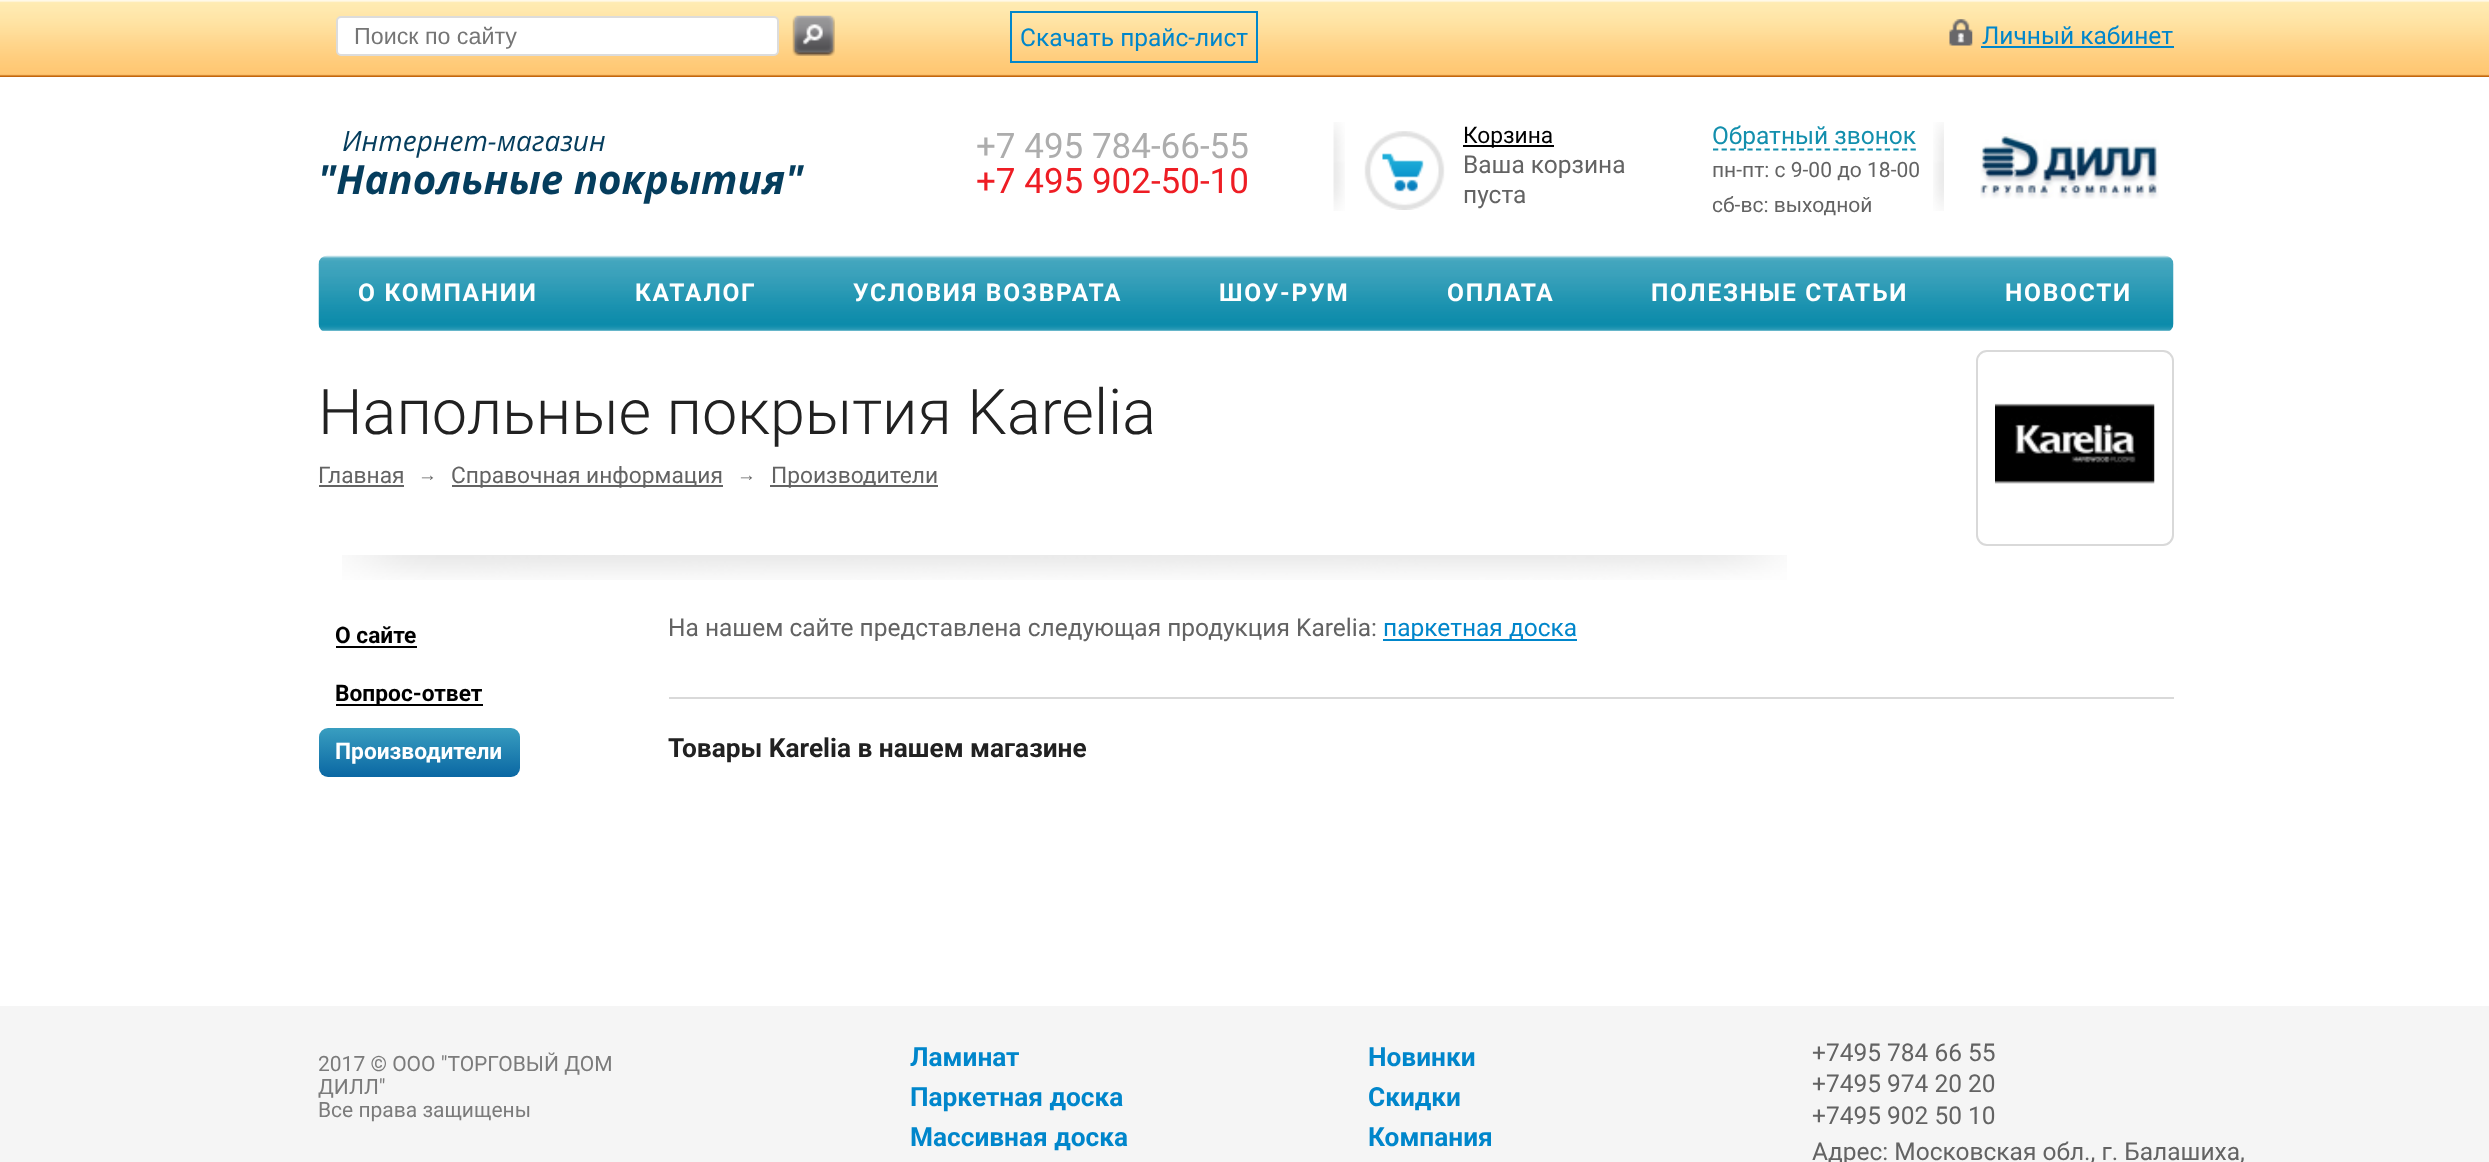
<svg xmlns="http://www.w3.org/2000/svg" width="2489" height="1162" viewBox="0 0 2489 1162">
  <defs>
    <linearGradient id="g1" gradientUnits="userSpaceOnUse" x1="419" y1="728" x2="419" y2="777"><stop offset="0" stop-color="rgb(57,158,192)"/><stop offset="1" stop-color="rgb(10,103,163)"/></linearGradient>
  </defs>
  <rect width="100%" height="100%" fill="rgb(255,255,255)"/>
  <image x="0" y="0" width="2489" height="77" href="pic1.png"/>
  <rect x="337" y="17" width="441" height="38" rx="4" fill="rgb(255,255,255)" stroke="rgb(220,220,220)" stroke-width="2"/>
  <text x="354" y="44" font-family="Liberation Sans" font-size="23.25" fill="rgb(117,117,117)">Поиск по сайту</text>
  <image x="792" y="15" width="43" height="41" href="pic2.png"/>
  <rect x="1011" y="12" width="246" height="50" fill="none" stroke="rgb(0,134,203)" stroke-width="2"/>
  <text x="1020" y="46" font-family="Roboto" font-size="24.5" fill="rgb(0,134,203)">Скачать прайс-лист</text>
  <image x="1949" y="19" width="24" height="27" href="pic3.png"/>
  <text x="1982" y="44" font-family="Roboto" font-size="24.5" fill="rgb(0,134,203)">Личный кабинет</text>
  <rect x="1981" y="46" width="193" height="2" fill="rgb(0,134,203)"/>
  <text x="342" y="151" font-family="Open Sans" font-size="28" font-style="italic" fill="rgb(5,61,93)">Интернет-магазин</text>
  <text x="318" y="194" font-family="Open Sans" font-size="40.25" font-weight="bold" font-style="italic" fill="rgb(5,61,93)">"Напольные покрытия"</text>
  <text x="976" y="158" font-family="Roboto" font-size="35" fill="rgb(173,173,173)">+7 495 784-66-55</text>
  <text x="976" y="193" font-family="Roboto" font-size="35" fill="rgb(238,29,36)">+7 495 902-50-10</text>
  <image x="1333" y="122" width="12" height="89" href="pic4.png"/>
  <image x="1364" y="131" width="81" height="79" href="pic5.png"/>
  <rect x="1463" y="145" width="91" height="2" fill="rgb(0,0,0)"/>
  <text x="1463" y="143" font-family="Roboto" font-size="22.75" fill="rgb(0,0,0)">Корзина</text>
  <g font-family="Roboto" font-size="24.5" fill="rgb(99,99,99)">
    <text>
      <tspan x="1463" y="173">Ваша корзина</tspan>
      <tspan x="1463" y="203">пуста</tspan>
    </text>
  </g>
  <path d="M1713 149.5H1916" fill="none" stroke="rgb(19,143,173)" stroke-width="1.8" stroke-dasharray="5.25 3.34"/>
  <text x="1712" y="144" font-family="Roboto" font-size="24.5" fill="rgb(19,143,173)">Обратный звонок</text>
  <g font-family="Roboto" font-size="21" fill="rgb(99,99,99)">
    <text>
      <tspan x="1712" y="177">пн-пт: с 9-00 до 18-00</tspan>
      <tspan x="1712" y="212">сб-вс: выходной</tspan>
    </text>
  </g>
  <image x="1933" y="122" width="11" height="89" href="pic6.png"/>
  <image x="1980" y="133" width="179" height="66" href="pic7.png"/>
  <image x="318" y="255" width="1856" height="76" href="pic8.png"/>
  <g font-family="Roboto" font-size="24.5" font-weight="bold" letter-spacing="1.75" fill="rgb(255,255,255)">
    <text x="358" y="301">О КОМПАНИИ</text>
    <text x="635" y="301">КАТАЛОГ</text>
    <text x="853" y="301">УСЛОВИЯ ВОЗВРАТА</text>
    <text x="1219" y="301">ШОУ-РУМ</text>
    <text x="1447" y="301">ОПЛАТА</text>
    <text x="1651" y="301">ПОЛЕЗНЫЕ СТАТЬИ</text>
    <text x="2005" y="301">НОВОСТИ</text>
  </g>
  <text x="318" y="434" font-family="Roboto" font-size="63" font-weight="300" fill="rgb(33,33,33)">Напольные покрытия Karelia</text>
  <text x="318" y="483" font-family="Roboto" font-size="22.75" fill="rgb(99,99,99)">Главная</text>
  <rect x="319" y="485" width="85" height="2" fill="rgb(99,99,99)"/>
  <text x="418" y="481" font-family="Liberation Sans" font-size="19" fill="rgb(99,99,99)">→</text>
  <rect x="452" y="485" width="271" height="2" fill="rgb(99,99,99)"/>
  <text x="451" y="483" font-family="Roboto" font-size="22.75" fill="rgb(99,99,99)">Справочная информация</text>
  <text x="737" y="481" font-family="Liberation Sans" font-size="19" fill="rgb(99,99,99)">→</text>
  <rect x="770" y="485" width="168" height="2" fill="rgb(99,99,99)"/>
  <text x="771" y="483" font-family="Roboto" font-size="22.75" fill="rgb(99,99,99)">Производители</text>
  <image x="342" y="555" width="1445" height="25" href="pic9.png"/>
  <text x="335" y="643" font-family="Roboto" font-size="22.75" font-weight="bold" fill="rgb(0,0,0)">О сайте</text>
  <rect x="336" y="646" width="81" height="2" fill="rgb(0,0,0)"/>
  <rect x="336" y="704" width="147" height="2" fill="rgb(0,0,0)"/>
  <text x="335" y="701" font-family="Roboto" font-size="22.75" font-weight="bold" fill="rgb(0,0,0)">Вопрос-ответ</text>
  <rect x="319" y="728" width="201" height="49" rx="9" fill="url(#g1)"/>
  <text x="335" y="759" font-family="Roboto" font-size="22.75" font-weight="bold" fill="rgb(255,255,255)">Производители</text>
  <rect x="1977" y="351" width="196" height="194" rx="10" fill="none" stroke="rgb(217,217,217)" stroke-width="2"/>
  <image x="1995" y="403" width="160" height="81" href="pic10.png"/>
  <text x="668" y="636" font-family="Roboto" font-size="24.5" fill="rgb(99,99,99)">На нашем сайте представлена следующая продукция Karelia:</text>
  <rect x="1383" y="639" width="194" height="2" fill="rgb(0,134,203)"/>
  <text x="1383" y="636" font-family="Roboto" font-size="24.5" fill="rgb(0,134,203)">паркетная доска</text>
  <rect x="669" y="697" width="1505" height="2" fill="rgb(217,217,217)"/>
  <text x="668" y="757" font-family="Roboto" font-size="26.25" font-weight="bold" fill="rgb(33,33,33)">Товары Karelia в нашем магазине</text>
  <rect x="0" y="1006" width="2489" height="156" fill="rgb(245,245,245)"/>
  <g font-family="Roboto" font-size="21" fill="rgb(123,123,123)">
    <text>
      <tspan x="318" y="1071">2017 © ООО "ТОРГОВЫЙ ДОМ</tspan>
      <tspan x="318" y="1094">ДИЛЛ"</tspan>
      <tspan x="318" y="1117">Все права защищены</tspan>
    </text>
  </g>
  <g font-family="Roboto" font-size="26.25" font-weight="bold" fill="rgb(0,134,203)">
    <text>
      <tspan x="910" y="1066">Ламинат</tspan>
      <tspan x="910" y="1106">Паркетная доска</tspan>
      <tspan x="910" y="1146">Массивная доска</tspan>
    </text>
    <text>
      <tspan x="1368" y="1066">Новинки</tspan>
      <tspan x="1368" y="1106">Скидки</tspan>
      <tspan x="1368" y="1146">Компания</tspan>
    </text>
  </g>
  <g font-family="Roboto" font-size="24.5" fill="rgb(99,99,99)">
    <text>
      <tspan x="1812" y="1061">+7495 784 66 55</tspan>
      <tspan x="1812" y="1092">+7495 974 20 20</tspan>
      <tspan x="1812" y="1124">+7495 902 50 10</tspan>
      <tspan x="1812" y="1160">Адрес: Московская обл., г. Балашиха,</tspan>
    </text>
  </g>
</svg>
